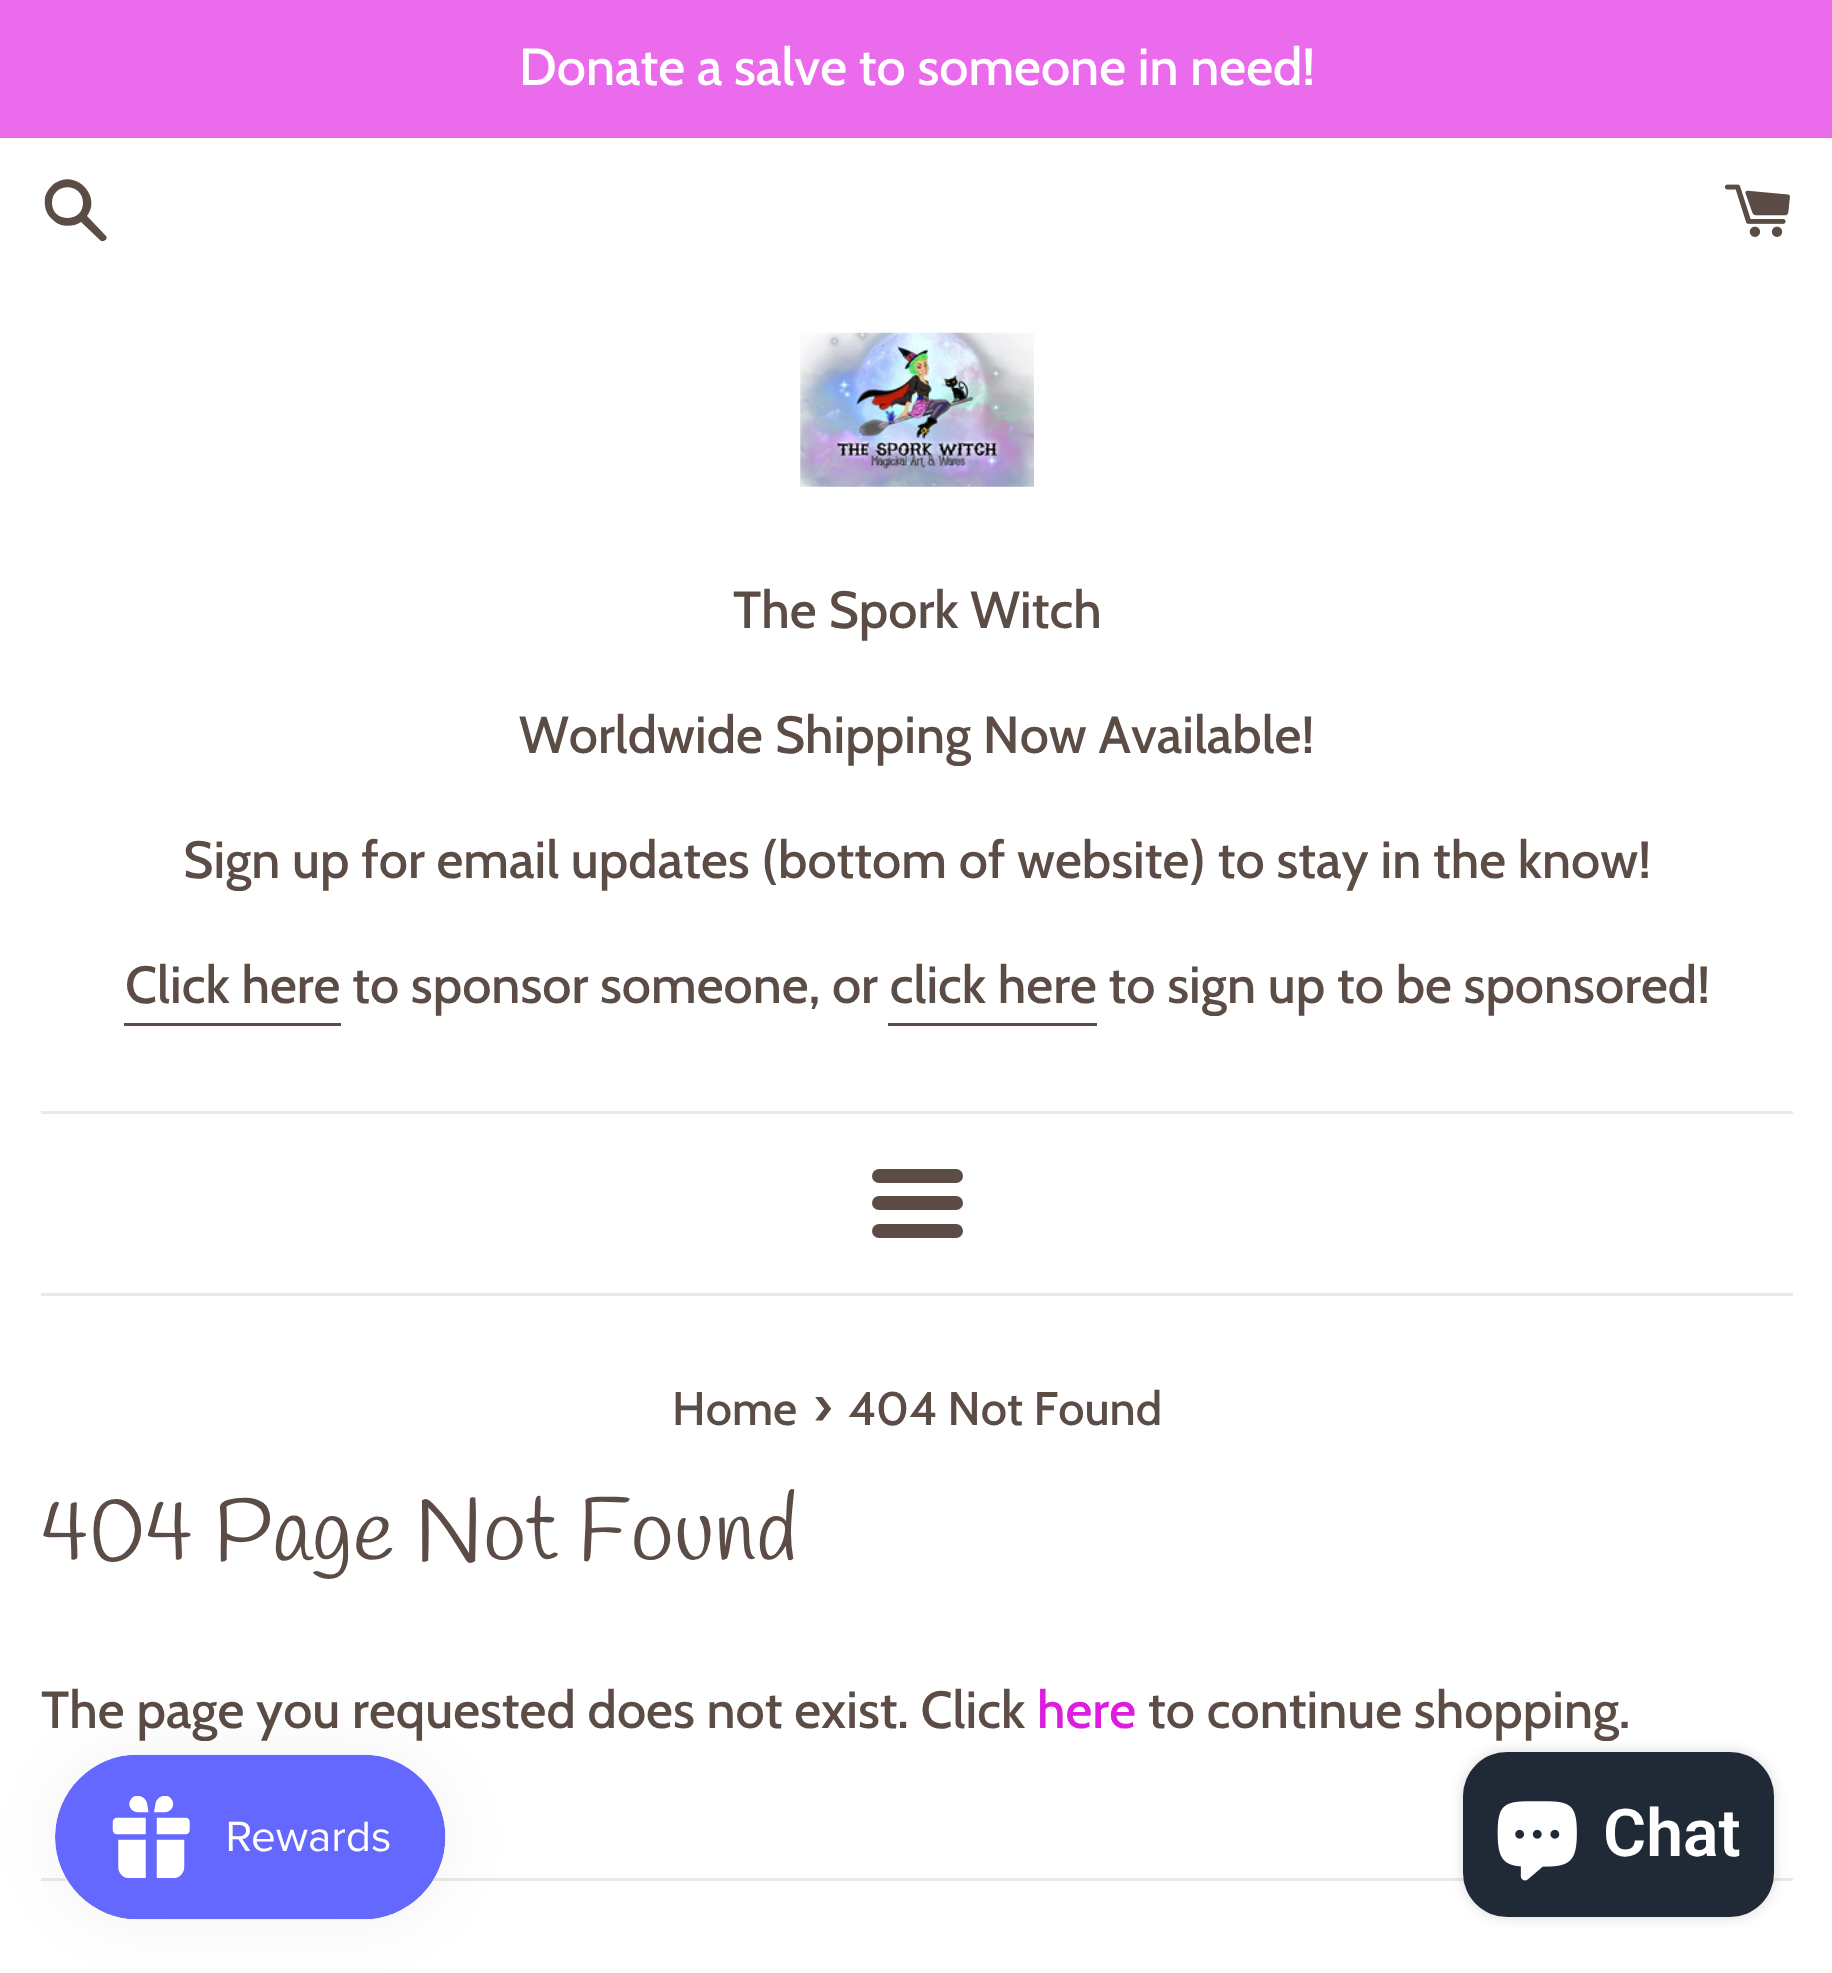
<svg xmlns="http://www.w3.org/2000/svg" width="1832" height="1973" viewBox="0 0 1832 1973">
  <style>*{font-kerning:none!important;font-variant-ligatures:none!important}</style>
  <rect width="100%" height="100%" fill="rgb(255,255,255)"/>
  <rect x="0" y="0" width="1832" height="138" fill="rgb(234,107,236)"/>
  <text x="519" y="85" font-family="Cabin" font-size="52.25" font-weight="500" fill="rgb(255,255,255)">Donate a salve to someone in need!</text>
  <path d="M105 235L87 216C102 196 76 169 55 183C50 187 46 192 45 198C44 206 46 214 52 219C59 227 72 228 81 222L101 241C105 242 109 238 105 235ZM52 203C52 182 83 182 83 203C83 223 52 223 52 203Z" fill="rgb(91,76,69)"/>
  <image x="1724" y="184" width="66" height="53" href="pic1.png"/>
  <image x="800" y="332" width="234" height="155" href="pic2.png"/>
  <g font-family="Cabin" font-size="52.25" font-weight="500" fill="rgb(91,76,69)">
    <text x="733" y="628">The Spork Witch</text>
    <text x="519" y="753">Worldwide Shipping Now Available!</text>
    <text x="183" y="878">Sign up for email updates (bottom of website) to stay in the know!</text>
    <text x="125" y="1003">Click here to sponsor someone, or click here to sign up to be sponsored!</text>
  </g>
  <rect x="124" y="1023" width="217" height="3" fill="rgb(91,76,69)"/>
  <rect x="888" y="1023" width="209" height="3" fill="rgb(91,76,69)"/>
  <rect x="41" y="1111" width="1752" height="3" fill="rgb(237,232,231)"/>
  <rect x="872" y="1169" width="91" height="14" rx="7" fill="rgb(91,76,69)"/>
  <rect x="872" y="1196" width="91" height="14" rx="7" fill="rgb(91,76,69)"/>
  <rect x="872" y="1224" width="91" height="14" rx="7" fill="rgb(91,76,69)"/>
  <rect x="41" y="1293" width="1752" height="3" fill="rgb(237,232,231)"/>
  <text x="672" y="1425" font-family="Cabin" font-size="47" font-weight="500" fill="rgb(91,76,69)">Home</text>
  <text x="813" y="1425" font-family="Cabin" font-size="57" font-weight="500" fill="rgb(91,76,69)">›</text>
  <text x="848" y="1425" font-family="Cabin" font-size="47" font-weight="500" fill="rgb(91,76,69)">404 Not Found</text>
  <text x="41" y="1560" font-family="Handlee" font-size="88" fill="rgb(91,76,69)">404 Page Not Found</text>
  <text x="41" y="1728" font-family="Cabin" font-size="52.25" font-weight="500" fill="rgb(91,76,69)">The page you requested does not exist. Click</text>
  <text x="1037" y="1728" font-family="Cabin" font-size="52.25" font-weight="500" fill="rgb(219,29,221)">here</text>
  <text x="1148" y="1728" font-family="Cabin" font-size="52.25" font-weight="500" fill="rgb(91,76,69)">to continue shopping.</text>
  <rect x="41" y="1878" width="1752" height="3" fill="rgb(237,232,231)"/>
  <rect x="55" y="1755" width="391" height="165" rx="82.5" fill="rgba(0,0,0,0.05)" filter="blur(34.5px)"/>
  <image x="55" y="1754" width="391" height="166" href="pic3.png"/>
  <rect x="1463" y="1752" width="311" height="165" rx="44" fill="rgba(0,0,0,0.15)" filter="blur(7px)"/>
  <rect x="1463" y="1752" width="311" height="165" rx="44" fill="rgb(32,42,54)"/>
  <image x="1497" y="1801" width="80" height="80" href="pic4.png"/>
  <text x="1603" y="1856" font-family="Roboto" font-size="66" font-weight="600" fill="rgb(255,255,255)">Chat</text>
</svg>
